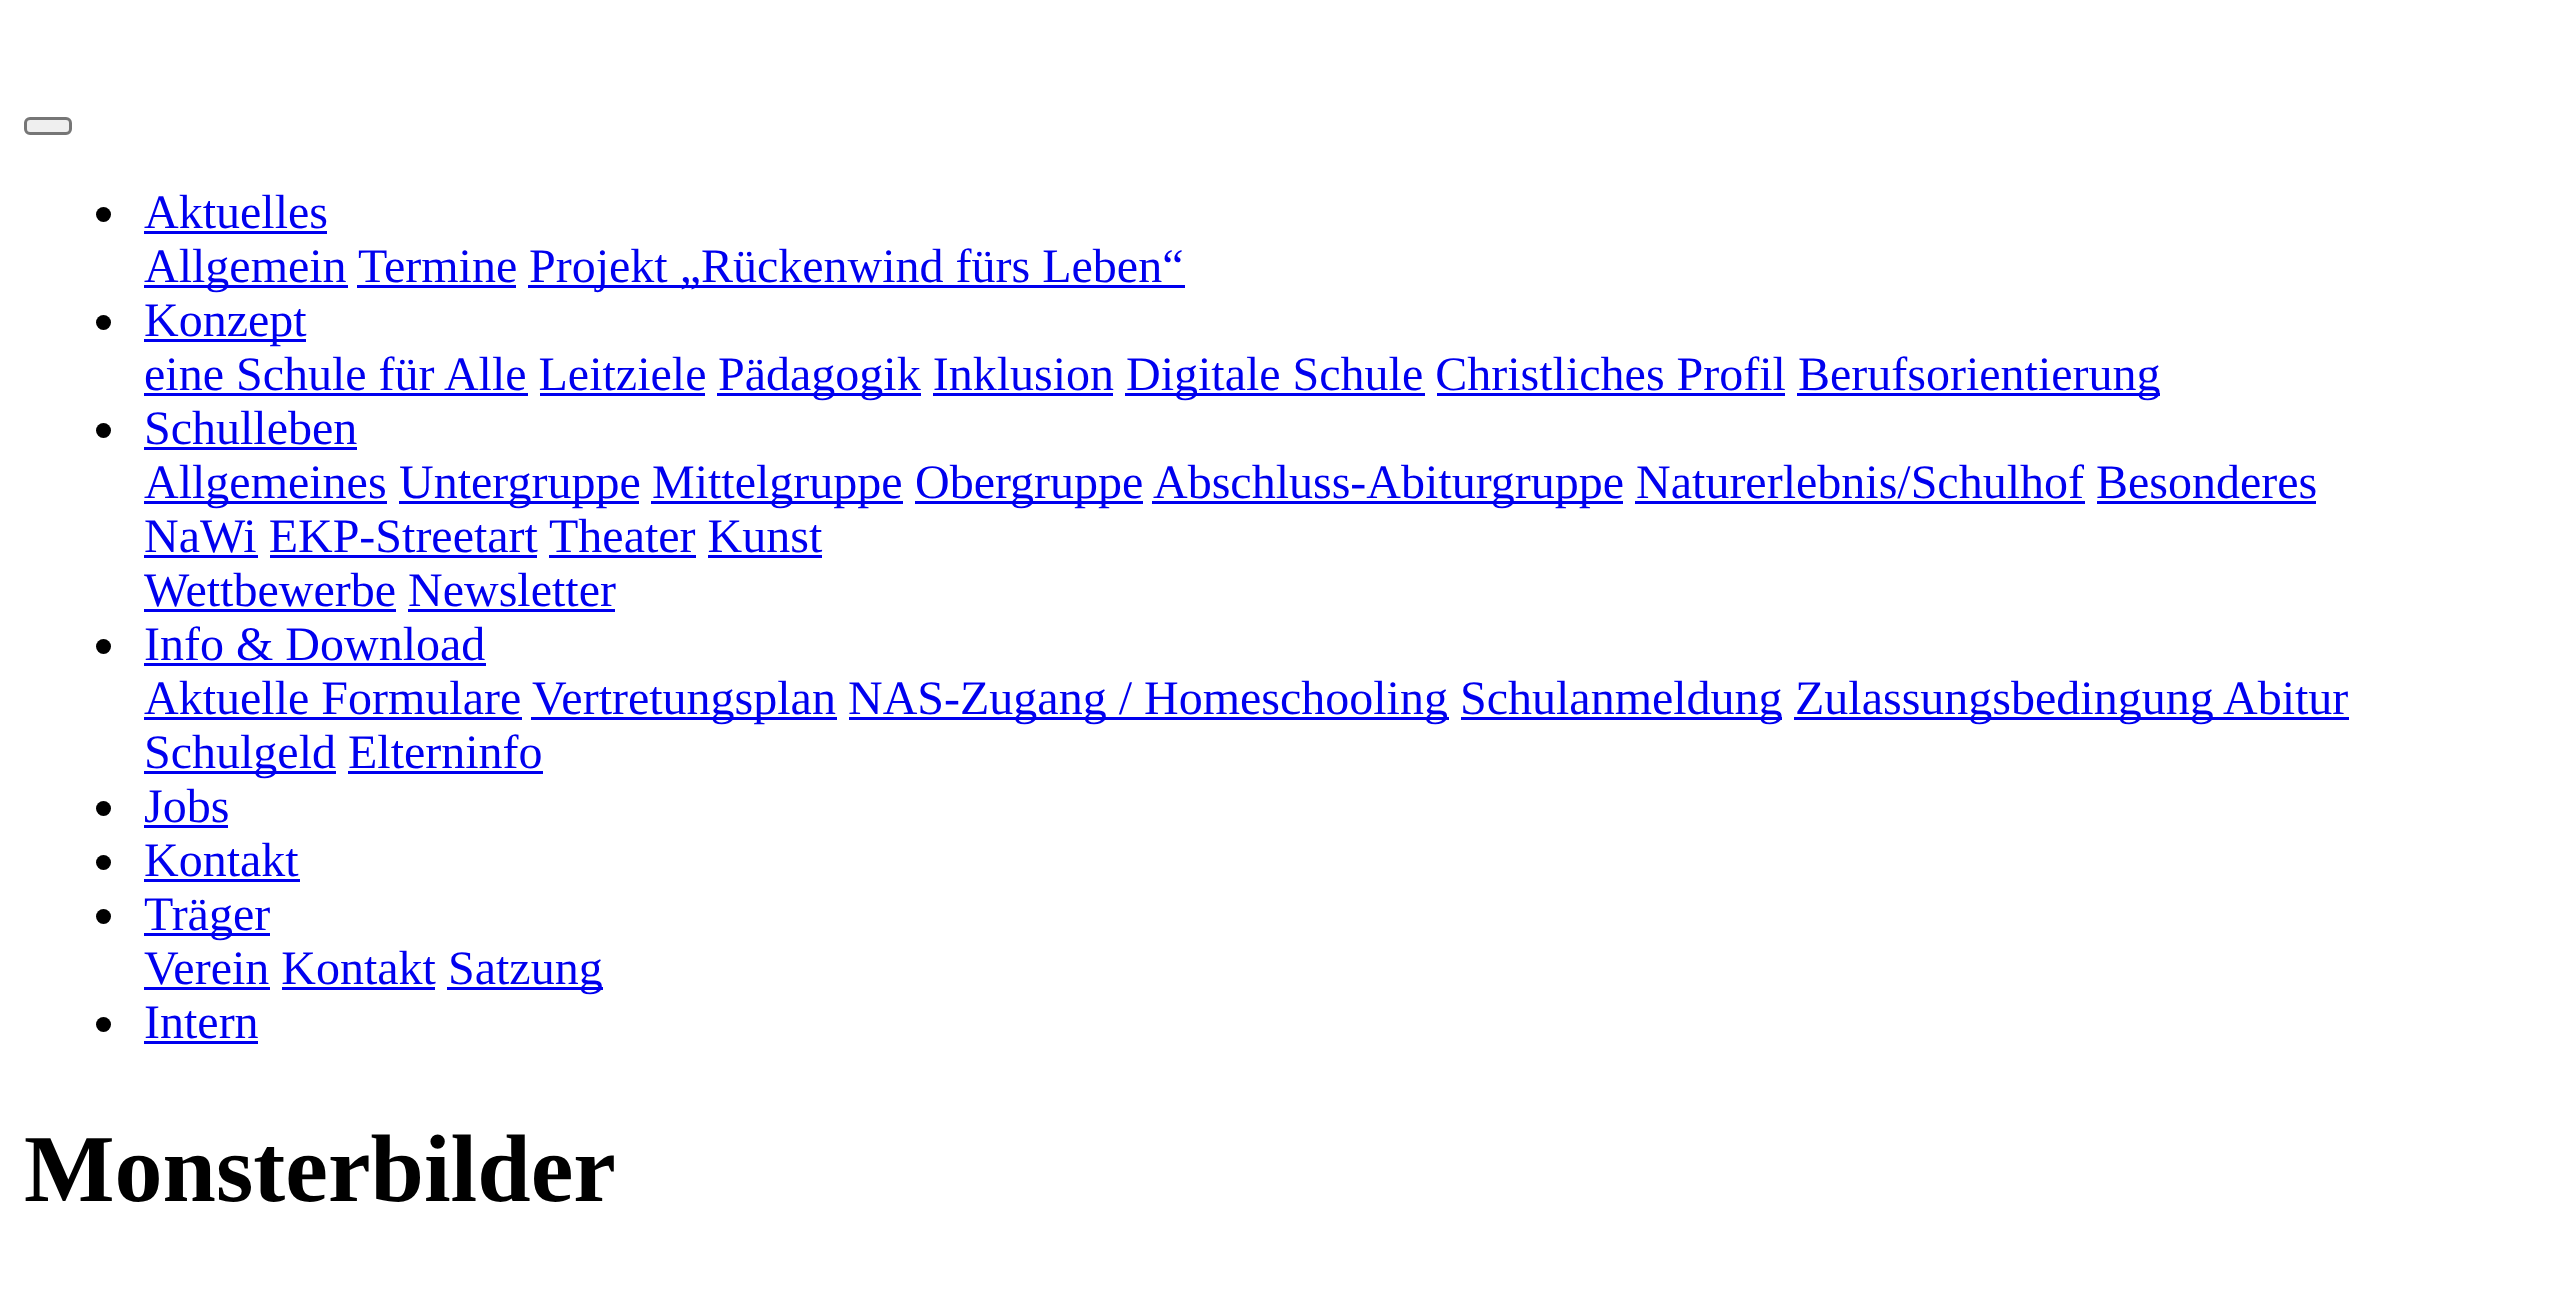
<svg xmlns="http://www.w3.org/2000/svg" width="2568" height="1309" viewBox="0 0 2568 1309">
  <rect width="100%" height="100%" fill="rgb(255,255,255)"/>
  <rect x="25.5" y="118.5" width="45" height="15" rx="4.5" fill="rgb(239,239,239)" stroke="rgb(118,118,118)" stroke-width="3"/>
  <circle cx="103.5" cy="214.5" r="7.5" fill="rgb(0,0,0)"/>
  <text x="144" y="228" font-family="Liberation Serif" font-size="48" fill="rgb(0,0,238)">Aktuelles</text>
  <rect x="144" y="231" width="183" height="3" fill="rgb(0,0,238)"/>
  <rect x="144" y="285" width="204" height="3" fill="rgb(0,0,238)"/>
  <g font-family="Liberation Serif" font-size="48" fill="rgb(0,0,238)">
    <text x="144" y="282">Allgemein</text>
    <text x="358" y="282">Termine</text>
  </g>
  <rect x="357" y="285" width="159" height="3" fill="rgb(0,0,238)"/>
  <rect x="528" y="285" width="657" height="3" fill="rgb(0,0,238)"/>
  <text x="529" y="282" font-family="Liberation Serif" font-size="48" fill="rgb(0,0,238)">Projekt „Rückenwind fürs Leben“</text>
  <circle cx="103.5" cy="322.5" r="7.5" fill="rgb(0,0,0)"/>
  <rect x="144" y="339" width="162" height="3" fill="rgb(0,0,238)"/>
  <g font-family="Liberation Serif" font-size="48" fill="rgb(0,0,238)">
    <text>
      <tspan x="144" y="336">Konzept</tspan>
      <tspan x="144" y="390">eine Schule für Alle Leitziele</tspan>
    </text>
  </g>
  <rect x="144" y="393" width="384" height="3" fill="rgb(0,0,238)"/>
  <rect x="717" y="393" width="204" height="3" fill="rgb(0,0,238)"/>
  <text x="718" y="390" font-family="Liberation Serif" font-size="48" fill="rgb(0,0,238)">Pädagogik Inklusion</text>
  <rect x="1125" y="393" width="300" height="3" fill="rgb(0,0,238)"/>
  <text x="1126" y="390" font-family="Liberation Serif" font-size="48" fill="rgb(0,0,238)">Digitale Schule Christliches Profil</text>
  <rect x="1797" y="393" width="363" height="3" fill="rgb(0,0,238)"/>
  <text x="1798" y="390" font-family="Liberation Serif" font-size="48" fill="rgb(0,0,238)">Berufsorientierung</text>
  <rect x="540" y="393" width="165" height="3" fill="rgb(0,0,238)"/>
  <rect x="933" y="393" width="180" height="3" fill="rgb(0,0,238)"/>
  <rect x="1437" y="393" width="348" height="3" fill="rgb(0,0,238)"/>
  <circle cx="103.5" cy="430.5" r="7.5" fill="rgb(0,0,0)"/>
  <text x="144" y="444" font-family="Liberation Serif" font-size="48" fill="rgb(0,0,238)">Schulleben</text>
  <rect x="144" y="447" width="213" height="3" fill="rgb(0,0,238)"/>
  <rect x="144" y="501" width="243" height="3" fill="rgb(0,0,238)"/>
  <text x="144" y="498" font-family="Liberation Serif" font-size="48" fill="rgb(0,0,238)">Allgemeines</text>
  <rect x="399" y="501" width="240" height="3" fill="rgb(0,0,238)"/>
  <text x="399" y="498" font-family="Liberation Serif" font-size="48" fill="rgb(0,0,238)">Untergruppe</text>
  <rect x="651" y="501" width="252" height="3" fill="rgb(0,0,238)"/>
  <text x="652" y="498" font-family="Liberation Serif" font-size="48" fill="rgb(0,0,238)">Mittelgruppe</text>
  <rect x="915" y="501" width="228" height="3" fill="rgb(0,0,238)"/>
  <text x="915" y="498" font-family="Liberation Serif" font-size="48" fill="rgb(0,0,238)">Obergruppe</text>
  <rect x="1152" y="501" width="471" height="3" fill="rgb(0,0,238)"/>
  <text x="1153" y="498" font-family="Liberation Serif" font-size="48" fill="rgb(0,0,238)">Abschluss-Abiturgruppe Naturerlebnis/Schulhof Besonderes</text>
  <rect x="1635" y="501" width="450" height="3" fill="rgb(0,0,238)"/>
  <rect x="2097" y="501" width="219" height="3" fill="rgb(0,0,238)"/>
  <text x="144" y="552" font-family="Liberation Serif" font-size="48" fill="rgb(0,0,238)">NaWi EKP-Streetart</text>
  <rect x="144" y="555" width="114" height="3" fill="rgb(0,0,238)"/>
  <text x="549" y="552" font-family="Liberation Serif" font-size="48" fill="rgb(0,0,238)">Theater Kunst</text>
  <rect x="549" y="555" width="147" height="3" fill="rgb(0,0,238)"/>
  <rect x="270" y="555" width="267" height="3" fill="rgb(0,0,238)"/>
  <rect x="708" y="555" width="114" height="3" fill="rgb(0,0,238)"/>
  <text x="144" y="606" font-family="Liberation Serif" font-size="48" fill="rgb(0,0,238)">Wettbewerbe Newsletter</text>
  <rect x="144" y="609" width="252" height="3" fill="rgb(0,0,238)"/>
  <rect x="408" y="609" width="207" height="3" fill="rgb(0,0,238)"/>
  <circle cx="103.5" cy="646.5" r="7.5" fill="rgb(0,0,0)"/>
  <text x="144" y="660" font-family="Liberation Serif" font-size="48" fill="rgb(0,0,238)">Info &amp; Download</text>
  <rect x="144" y="663" width="342" height="3" fill="rgb(0,0,238)"/>
  <text x="144" y="714" font-family="Liberation Serif" font-size="48" fill="rgb(0,0,238)">Aktuelle Formulare</text>
  <rect x="144" y="717" width="378" height="3" fill="rgb(0,0,238)"/>
  <rect x="531" y="717" width="306" height="3" fill="rgb(0,0,238)"/>
  <text x="532" y="714" font-family="Liberation Serif" font-size="48" fill="rgb(0,0,238)">Vertretungsplan</text>
  <rect x="849" y="717" width="600" height="3" fill="rgb(0,0,238)"/>
  <text x="848" y="714" font-family="Liberation Serif" font-size="48" fill="rgb(0,0,238)">NAS-Zugang / Homeschooling</text>
  <rect x="1461" y="717" width="321" height="3" fill="rgb(0,0,238)"/>
  <text x="1460" y="714" font-family="Liberation Serif" font-size="48" fill="rgb(0,0,238)">Schulanmeldung</text>
  <rect x="1794" y="717" width="555" height="3" fill="rgb(0,0,238)"/>
  <text x="1795" y="714" font-family="Liberation Serif" font-size="48" fill="rgb(0,0,238)">Zulassungsbedingung Abitur</text>
  <rect x="144" y="771" width="192" height="3" fill="rgb(0,0,238)"/>
  <text x="144" y="768" font-family="Liberation Serif" font-size="48" fill="rgb(0,0,238)">Schulgeld Elterninfo</text>
  <rect x="348" y="771" width="195" height="3" fill="rgb(0,0,238)"/>
  <circle cx="103.5" cy="808.5" r="7.5" fill="rgb(0,0,0)"/>
  <text x="144" y="822" font-family="Liberation Serif" font-size="48" fill="rgb(0,0,238)">Jobs</text>
  <rect x="144" y="825" width="84" height="3" fill="rgb(0,0,238)"/>
  <circle cx="103.5" cy="862.5" r="7.5" fill="rgb(0,0,0)"/>
  <text x="144" y="876" font-family="Liberation Serif" font-size="48" fill="rgb(0,0,238)">Kontakt</text>
  <rect x="144" y="879" width="156" height="3" fill="rgb(0,0,238)"/>
  <circle cx="103.5" cy="916.5" r="7.5" fill="rgb(0,0,0)"/>
  <rect x="144" y="933" width="126" height="3" fill="rgb(0,0,238)"/>
  <g font-family="Liberation Serif" font-size="48" fill="rgb(0,0,238)">
    <text>
      <tspan x="144" y="930">Träger</tspan>
      <tspan x="144" y="984">Verein Kontakt</tspan>
    </text>
  </g>
  <rect x="144" y="987" width="126" height="3" fill="rgb(0,0,238)"/>
  <rect x="447" y="987" width="156" height="3" fill="rgb(0,0,238)"/>
  <text x="448" y="984" font-family="Liberation Serif" font-size="48" fill="rgb(0,0,238)">Satzung</text>
  <rect x="282" y="987" width="153" height="3" fill="rgb(0,0,238)"/>
  <circle cx="103.5" cy="1024.5" r="7.5" fill="rgb(0,0,0)"/>
  <text x="144" y="1038" font-family="Liberation Serif" font-size="48" fill="rgb(0,0,238)">Intern</text>
  <rect x="144" y="1041" width="114" height="3" fill="rgb(0,0,238)"/>
  <text x="24" y="1201" font-family="Liberation Serif" font-size="96" font-weight="bold" fill="rgb(0,0,0)">Monsterbilder</text>
</svg>
